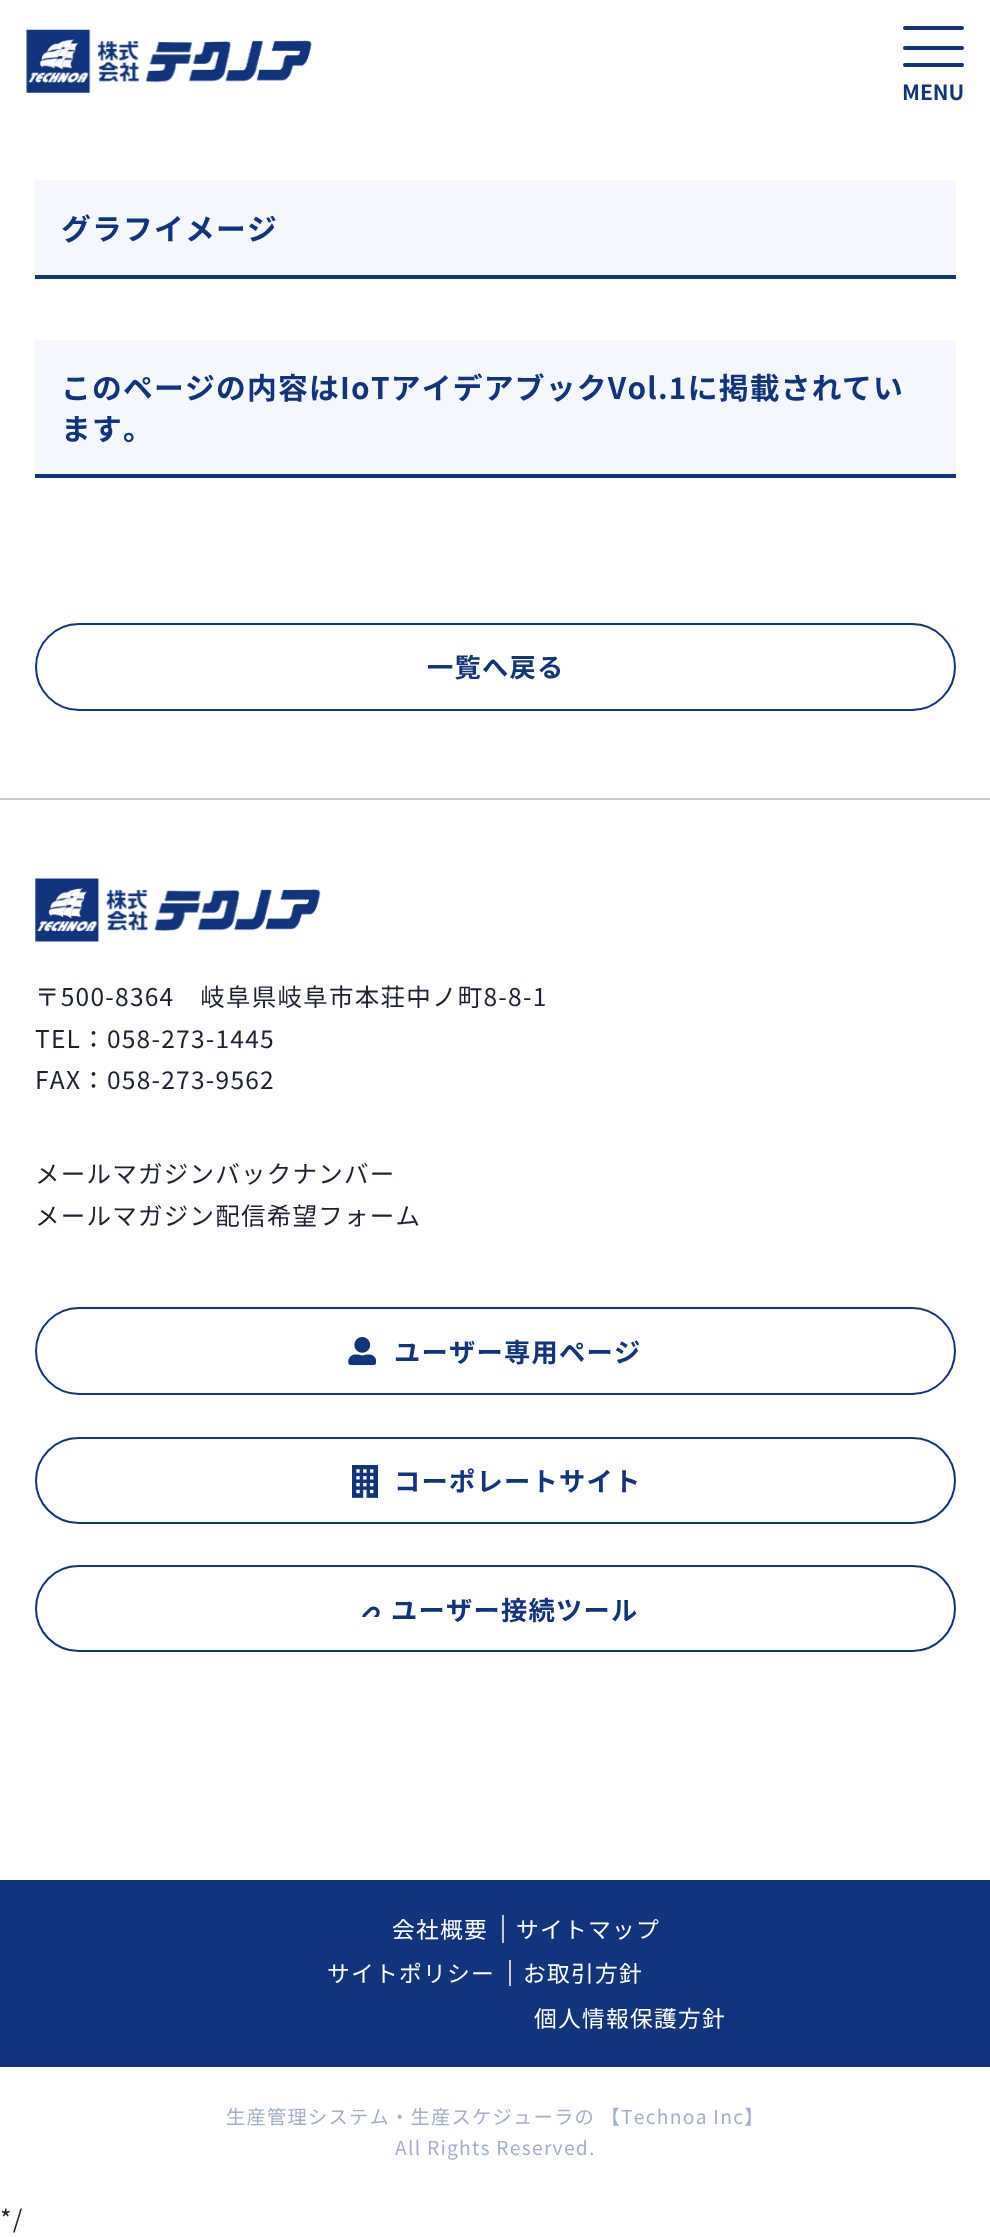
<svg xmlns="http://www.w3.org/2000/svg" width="990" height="2237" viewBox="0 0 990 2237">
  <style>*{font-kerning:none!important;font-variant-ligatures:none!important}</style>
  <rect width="100%" height="100%" fill="rgb(255,255,255)"/>
  <image x="26" y="29" width="286" height="64" href="pic1.png"/>
  <rect x="903" y="26" width="61" height="4" rx="2" fill="rgb(18,52,124)"/>
  <rect x="903" y="46" width="61" height="4" rx="2" fill="rgb(18,52,124)"/>
  <rect x="903" y="63" width="61" height="4" rx="2" fill="rgb(18,52,124)"/>
  <text x="902" y="100" font-family="Noto Sans JP" font-size="21" font-weight="bold" fill="rgb(18,52,124)">MENU</text>
  <rect x="35" y="180" width="921" height="95" fill="rgb(244,247,255)"/>
  <rect x="35" y="275" width="921" height="4" fill="rgb(18,52,124)"/>
  <text x="61" y="240" font-family="Noto Sans JP" font-size="29.75" font-weight="bold" letter-spacing="1.25" fill="rgb(18,52,124)">グラフイメージ</text>
  <rect x="35" y="340" width="921" height="134" fill="rgb(244,247,255)"/>
  <rect x="35" y="474" width="921" height="4" fill="rgb(18,52,124)"/>
  <g font-family="Noto Sans JP" font-size="29.75" font-weight="bold" letter-spacing="1.25" fill="rgb(18,52,124)">
    <text x="61" y="399">このページの内容はIoTアイデアブックVol.1に掲載され</text>
    <text x="842" y="399">てい</text>
    <text x="61" y="440">ます。</text>
  </g>
  <rect x="36" y="624" width="919" height="86" rx="43" fill="none" stroke="rgb(18,52,124)" stroke-width="2"/>
  <text x="427" y="677" font-family="Noto Sans JP" font-size="26.25" font-weight="bold" letter-spacing="1.25" fill="rgb(18,52,124)">一覧へ戻る</text>
  <rect x="0" y="798" width="990" height="2" fill="rgb(200,200,200)"/>
  <image x="35" y="878" width="286" height="64" href="pic2.png"/>
  <g font-family="Noto Sans JP" font-size="24.5" letter-spacing="1.25" fill="rgb(28,34,50)">
    <text>
      <tspan x="35" y="1006">〒500-8364　岐阜県岐阜市本荘中ノ町8-8-1</tspan>
      <tspan x="35" y="1048">TEL：058-273-1445</tspan>
      <tspan x="35" y="1089">FAX：058-273-9562</tspan>
    </text>
    <text>
      <tspan x="35" y="1183">メールマガジンバックナンバー</tspan>
      <tspan x="35" y="1225">メールマガジン配信希望フォーム</tspan>
    </text>
  </g>
  <rect x="36" y="1308" width="919" height="86" rx="43" fill="none" stroke="rgb(18,52,124)" stroke-width="2"/>
  <image x="348" y="1337" width="28" height="28" href="pic3.png"/>
  <text x="394" y="1362" font-family="Noto Sans JP" font-size="26.25" font-weight="bold" letter-spacing="1.25" fill="rgb(18,52,124)">ユーザー専用ページ</text>
  <rect x="36" y="1438" width="919" height="85" rx="42.5" fill="none" stroke="rgb(18,52,124)" stroke-width="2"/>
  <image x="352" y="1465" width="26" height="33" href="pic4.png"/>
  <text x="394" y="1491" font-family="Noto Sans JP" font-size="26.25" font-weight="bold" letter-spacing="1.25" fill="rgb(18,52,124)">コーポレートサイト</text>
  <rect x="36" y="1566" width="919" height="85" rx="42.5" fill="none" stroke="rgb(18,52,124)" stroke-width="2"/>
  <image x="362" y="1606" width="18" height="11" href="pic5.png"/>
  <text x="391" y="1620" font-family="Noto Sans JP" font-size="26.25" font-weight="bold" letter-spacing="1.25" fill="rgb(18,52,124)">ユーザー接続ツール</text>
  <rect x="0" y="1880" width="990" height="187" fill="rgb(18,52,124)"/>
  <text x="392" y="1938" font-family="Noto Sans JP" font-size="22.75" letter-spacing="1.25" fill="rgb(255,255,255)">会社概要</text>
  <rect x="502" y="1915" width="2" height="28" fill="rgb(200,200,200)"/>
  <g font-family="Noto Sans JP" font-size="22.75" letter-spacing="1.25" fill="rgb(255,255,255)">
    <text x="516" y="1938">サイトマップ</text>
    <text x="327" y="1982">サイトポリシー</text>
  </g>
  <rect x="509" y="1960" width="2" height="26" fill="rgb(200,200,200)"/>
  <g font-family="Noto Sans JP" font-size="22.75" letter-spacing="1.25" fill="rgb(255,255,255)">
    <text x="523" y="1982">お取引方針</text>
    <text x="534" y="2027">個人情報保護方針</text>
  </g>
  <g font-family="Noto Sans JP" font-size="19.25" letter-spacing="1.25" fill="rgb(162,176,204)">
    <text x="226" y="2124">生産管理システム・生産スケジューラの 【Technoa Inc】</text>
    <text x="395" y="2155">All Rights Reserved.</text>
  </g>
  <text x="0" y="2228" font-family="Noto Sans JP" font-size="24.5" letter-spacing="1.25" fill="rgb(28,34,50)">*/</text>
</svg>
